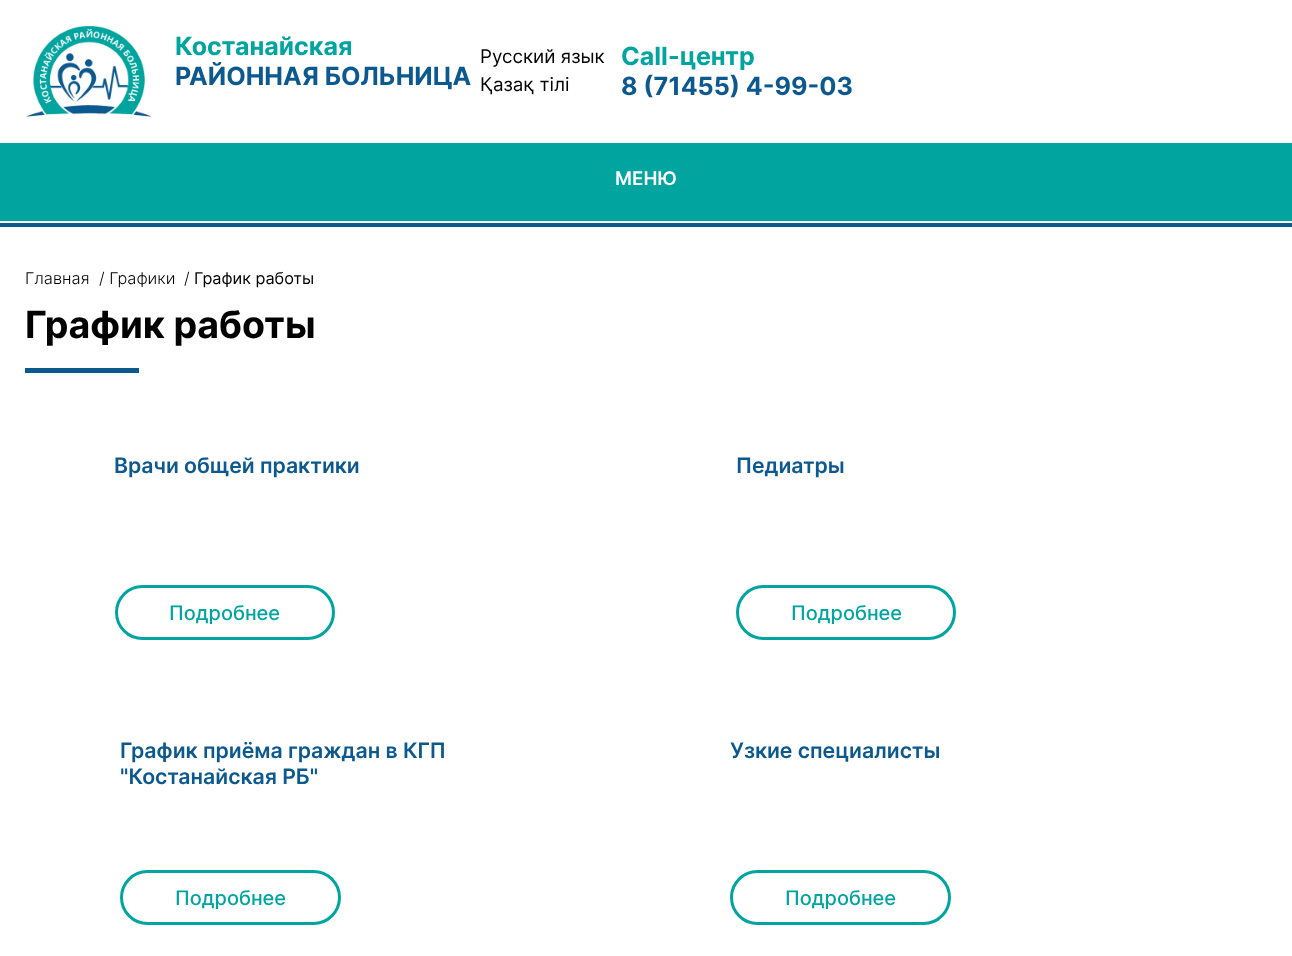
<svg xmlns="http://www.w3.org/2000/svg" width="1292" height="956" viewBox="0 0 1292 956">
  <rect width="100%" height="100%" fill="rgb(255,255,255)"/>
  <image x="26" y="25" width="126" height="92" href="pic1.png"/>
  <text x="175" y="55" font-family="Inter" font-size="25" font-weight="bold" fill="rgb(1,164,159)">Костанайская</text>
  <text x="175" y="85" font-family="Inter" font-size="25" font-weight="bold" fill="rgb(12,89,143)">РАЙОННАЯ БОЛЬНИЦА</text>
  <g font-family="Inter" font-size="18.75" fill="rgb(0,0,0)">
    <text>
      <tspan x="480" y="63">Русский язык</tspan>
      <tspan x="480" y="91">Қазақ тілі</tspan>
    </text>
  </g>
  <text x="621" y="65" font-family="Inter" font-size="25" font-weight="bold" fill="rgb(1,164,159)">Call-центр</text>
  <text x="621" y="95" font-family="Inter" font-size="25" font-weight="bold" fill="rgb(12,89,143)">8 (71455) 4-99-03</text>
  <rect x="0" y="143" width="1292" height="78" fill="rgb(1,164,159)"/>
  <text x="615" y="185" font-family="Inter" font-size="18.75" font-weight="600" fill="rgb(255,255,255)">МЕНЮ</text>
  <rect x="0" y="223" width="1292" height="4" fill="rgb(12,89,143)"/>
  <g font-family="Inter" font-size="16.25" font-weight="300" fill="rgb(0,0,0)">
    <text x="25" y="284">Главная</text>
    <text x="99" y="284">/ Графики</text>
    <text x="184" y="284">/</text>
  </g>
  <text x="194" y="284" font-family="Inter" font-size="16.25" fill="rgb(0,0,0)">График работы</text>
  <text x="25" y="338" font-family="Inter" font-size="37.5" font-weight="bold" fill="rgb(0,0,0)">График работы</text>
  <rect x="25" y="368" width="114" height="5" fill="rgb(12,89,143)"/>
  <text x="114" y="473" font-family="Inter" font-size="21.25" font-weight="600" fill="rgb(12,89,143)">Врачи общей практики</text>
  <rect x="116.5" y="586.5" width="217" height="52" rx="26" fill="none" stroke="rgb(1,164,159)" stroke-width="3"/>
  <text x="169" y="620" font-family="Inter" font-size="20" font-weight="500" fill="rgb(1,164,159)">Подробнее</text>
  <text x="736" y="473" font-family="Inter" font-size="21.25" font-weight="600" fill="rgb(12,89,143)">Педиатры</text>
  <rect x="737.5" y="586.5" width="217" height="52" rx="26" fill="none" stroke="rgb(1,164,159)" stroke-width="3"/>
  <text x="791" y="620" font-family="Inter" font-size="20" font-weight="500" fill="rgb(1,164,159)">Подробнее</text>
  <g font-family="Inter" font-size="21.25" font-weight="600" fill="rgb(12,89,143)">
    <text>
      <tspan x="120" y="758">График приёма граждан в КГП</tspan>
      <tspan x="120" y="784">"Костанайская РБ"</tspan>
    </text>
  </g>
  <rect x="121.5" y="871.5" width="218" height="52" rx="26" fill="none" stroke="rgb(1,164,159)" stroke-width="3"/>
  <text x="175" y="905" font-family="Inter" font-size="20" font-weight="500" fill="rgb(1,164,159)">Подробнее</text>
  <text x="730" y="758" font-family="Inter" font-size="21.25" font-weight="600" fill="rgb(12,89,143)">Узкие специалисты</text>
  <rect x="731.5" y="871.5" width="218" height="52" rx="26" fill="none" stroke="rgb(1,164,159)" stroke-width="3"/>
  <text x="785" y="905" font-family="Inter" font-size="20" font-weight="500" fill="rgb(1,164,159)">Подробнее</text>
</svg>
